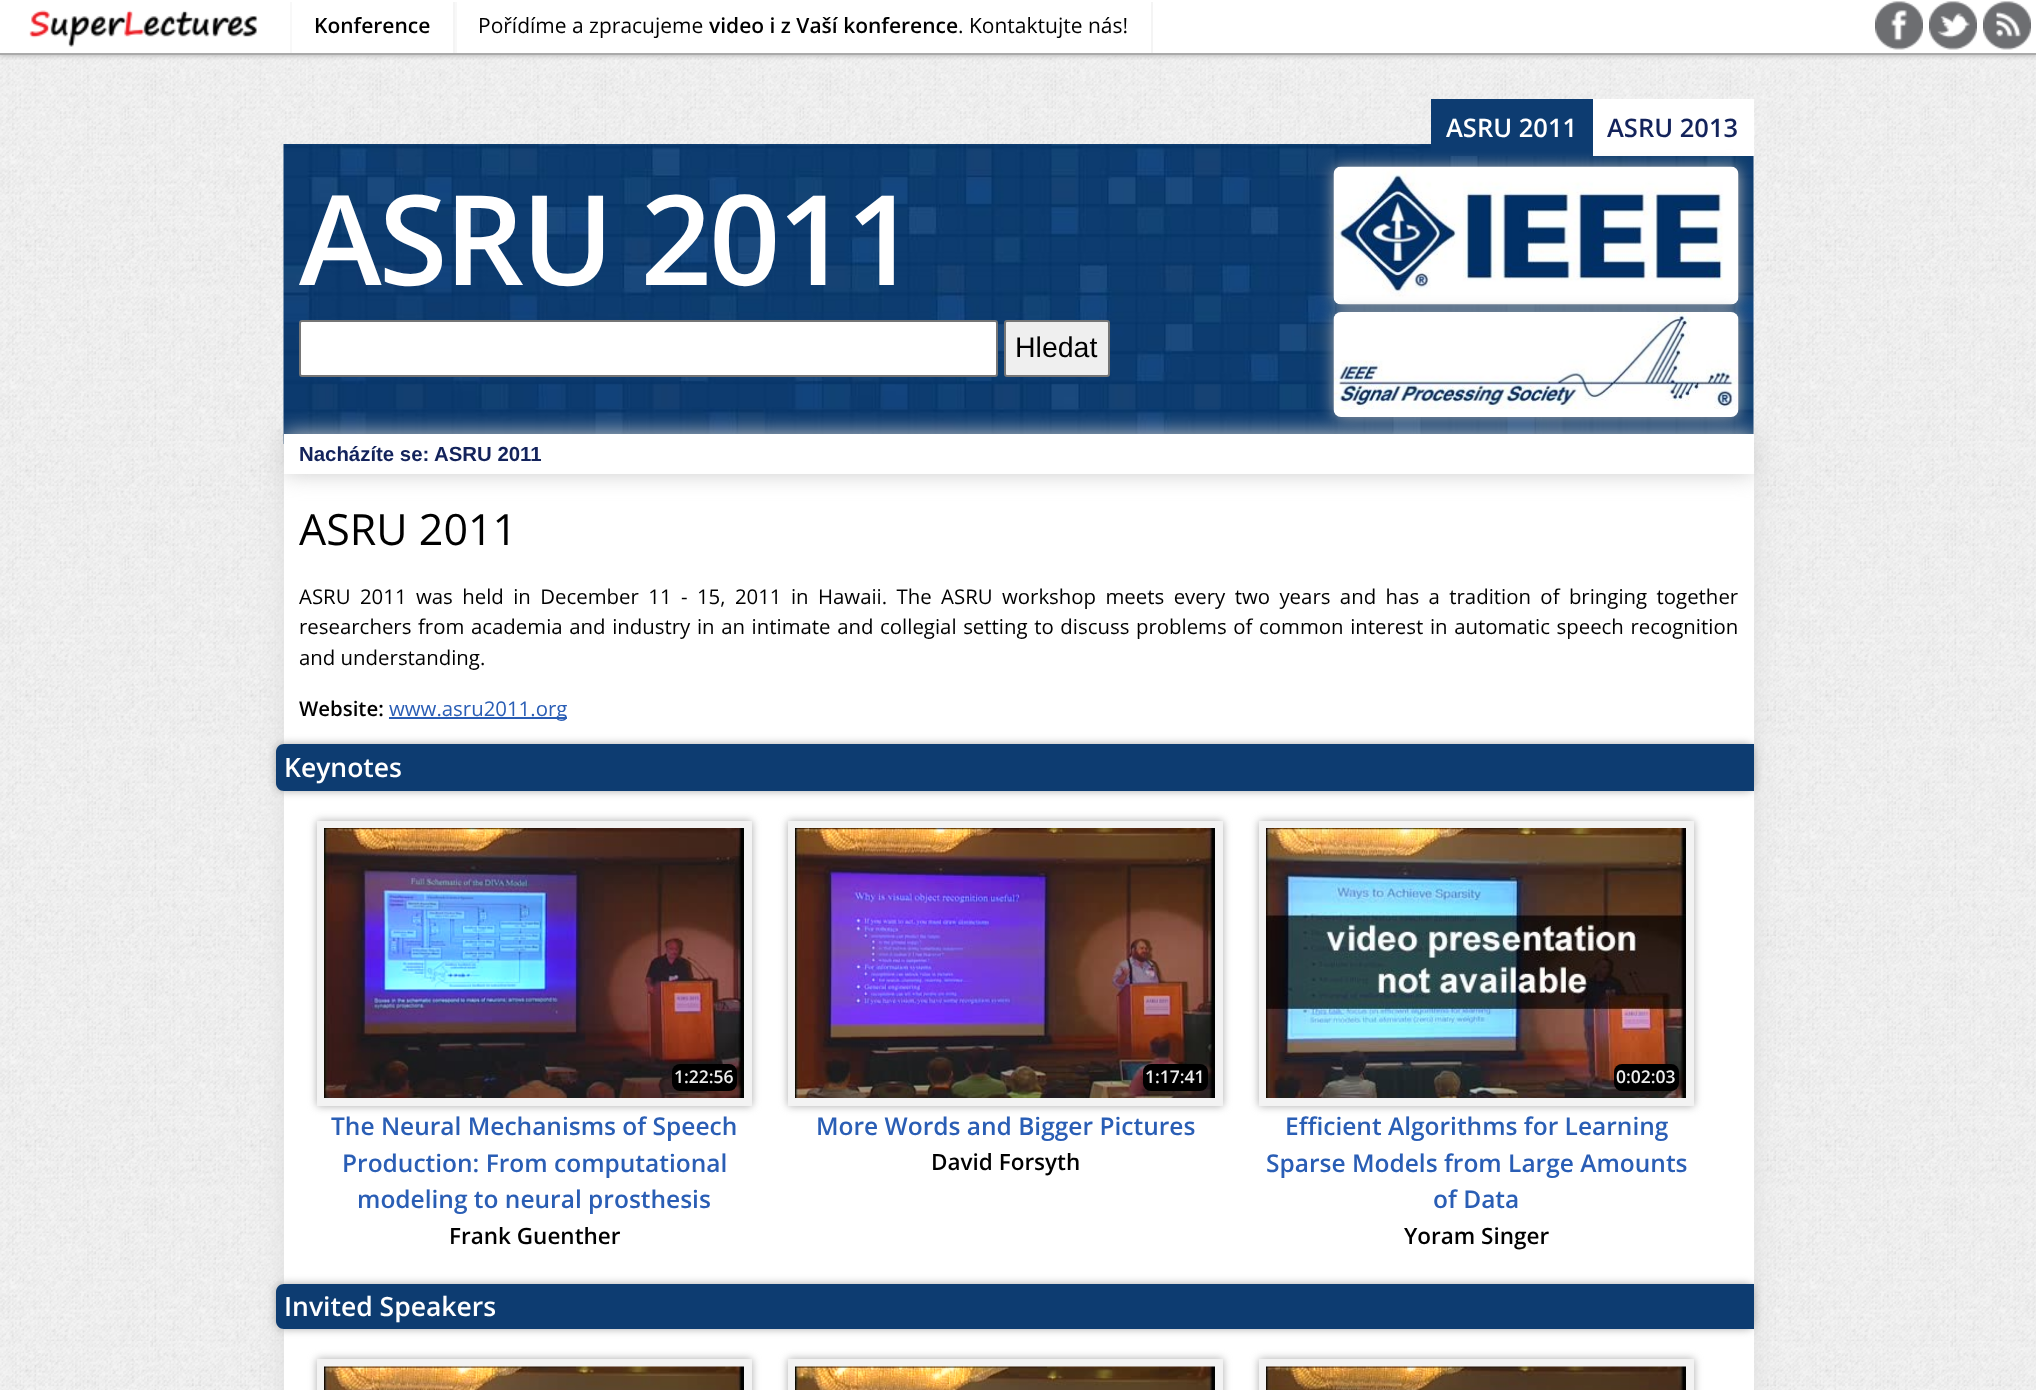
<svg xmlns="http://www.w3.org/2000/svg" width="2036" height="1390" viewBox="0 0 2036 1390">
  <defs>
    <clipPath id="clip1"><rect x="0" y="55" width="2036" height="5"/></clipPath>
  </defs>
  <rect width="100%" height="100%" fill="rgb(255,255,255)"/>
  <image x="0" y="55" width="2036" height="1335" href="pic1.png"/>
  <g clip-path="url(#clip1)">
    <rect x="0" y="2" width="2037" height="54" fill="rgb(187,187,187)" filter="blur(2px)"/>
  </g>
  <rect x="0" y="53" width="2036" height="2" fill="rgb(170,170,170)"/>
  <image x="29" y="10" width="229" height="37" href="pic2.png"/>
  <rect x="453" y="2" width="2" height="51" fill="rgb(244,244,244)"/>
  <rect x="290" y="2" width="2" height="51" fill="rgb(248,248,248)"/>
  <text x="314" y="33" font-family="Open Sans" font-size="21" font-weight="600" fill="rgb(0,0,0)">Konference</text>
  <rect x="1151" y="2" width="2" height="51" fill="rgb(244,244,244)"/>
  <rect x="455" y="2" width="2" height="51" fill="rgb(248,248,248)"/>
  <text x="478" y="33" font-family="Open Sans" font-size="21" fill="rgb(0,0,0)">Pořídíme a zpracujeme</text>
  <text x="709" y="33" font-family="Open Sans" font-size="21" font-weight="600" fill="rgb(0,0,0)">video i z Vaší konference</text>
  <text x="958" y="33" font-family="Open Sans" font-size="21" fill="rgb(0,0,0)">. Kontaktujte nás!</text>
  <image x="1875" y="1" width="48" height="49" href="pic3.png"/>
  <image x="1929" y="1" width="48" height="49" href="pic4.png"/>
  <image x="1983" y="1" width="48" height="49" href="pic5.png"/>
  <image x="283" y="144" width="1471" height="300" href="pic6.png"/>
  <rect x="1431" y="99" width="162" height="57" fill="rgb(13,60,113)"/>
  <text x="1446" y="137" font-family="Open Sans" font-size="25.5" font-weight="600" fill="rgb(255,255,255)">ASRU 2011</text>
  <rect x="1593" y="99" width="161" height="57" fill="rgb(255,255,255)"/>
  <text x="1607" y="137" font-family="Open Sans" font-size="25.5" font-weight="600" fill="rgb(19,35,91)">ASRU 2013</text>
  <text x="299" y="285" font-family="Open Sans" font-size="125" font-weight="600" letter-spacing="-3" fill="rgb(255,255,255)">ASRU 2011</text>
  <rect x="1334" y="167" width="405" height="138" rx="8" fill="rgb(170,170,170)" filter="blur(7.5px)"/>
  <image x="1333" y="166" width="406" height="139" href="pic7.png"/>
  <rect x="284" y="474" width="1470" height="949" fill="rgb(221,221,221)" filter="blur(11px)"/>
  <rect x="284" y="474" width="1470" height="916" fill="rgb(255,255,255)"/>
  <rect x="284" y="434" width="1470" height="40" fill="rgb(204,204,204)" filter="blur(11px)"/>
  <rect x="284" y="434" width="1470" height="40" fill="rgb(255,255,255)"/>
  <rect x="1334" y="312" width="405" height="105" rx="8" fill="rgb(170,170,170)" filter="blur(7.5px)"/>
  <image x="1333" y="312" width="406" height="105" href="pic8.png"/>
  <rect x="300" y="321" width="697" height="55" rx="2" fill="rgb(255,255,255)" stroke="rgb(118,118,118)" stroke-width="2"/>
  <rect x="1005" y="321" width="104" height="55" rx="2" fill="rgb(239,239,239)" stroke="rgb(118,118,118)" stroke-width="2"/>
  <text x="1015" y="357" font-family="Liberation Sans" font-size="28.5" fill="rgb(0,0,0)">Hledat</text>
  <g font-family="Liberation Sans" font-size="20.4" font-weight="bold" fill="rgb(19,35,91)">
    <text x="299" y="461">Nacházíte se:</text>
    <text x="434" y="461">ASRU 2011</text>
  </g>
  <text x="299" y="545" font-family="Open Sans" font-size="43" fill="rgb(0,0,0)">ASRU 2011</text>
  <g font-family="Open Sans" font-size="20.4" fill="rgb(0,0,0)">
    <text>
      <tspan x="299" y="604" word-spacing="4.1">ASRU 2011 was held in December 11 - 15, 2011 in Hawaii. The ASRU workshop meets every two years and has a tradition of bringing together</tspan>
      <tspan x="299" y="634" word-spacing="1.3">researchers from academia and industry in an intimate and collegial setting to discuss problems of common interest in automatic speech recognition</tspan>
      <tspan x="299" y="665">and understanding.</tspan>
    </text>
  </g>
  <text x="299" y="716" font-family="Open Sans" font-size="20.4" font-weight="600" fill="rgb(0,0,0)">Website:</text>
  <rect x="389" y="717" width="178" height="2" fill="rgb(42,94,181)"/>
  <text x="389" y="716" font-family="Open Sans" font-size="20.4" fill="rgb(42,94,181)">www.asru2011.org</text>
  <rect x="276" y="744" width="1478" height="47" rx="8" fill="rgb(170,170,170)" filter="blur(4px)"/>
  <path d="M284 744H1754V791H284C279.5 791 276 787.5 276 783V752C276 747.5 279.5 744 284 744Z" fill="rgb(13,60,113)"/>
  <text x="284" y="777" font-family="Open Sans" font-size="26.5" font-weight="600" fill="rgb(255,255,255)">Keynotes</text>
  <rect x="317" y="821" width="435" height="285" fill="rgb(170,170,170)" filter="blur(4px)"/>
  <rect x="317" y="821" width="435" height="285" fill="rgb(243,243,243)"/>
  <image x="324" y="828" width="420" height="270" href="pic9.png"/>
  <rect x="672" y="1064" width="65" height="27" rx="8" fill="rgb(0,0,0)"/>
  <text x="674" y="1083" font-family="Open Sans" font-size="17.5" font-weight="600" fill="rgb(238,238,238)">1:22:56</text>
  <g font-family="Open Sans" font-size="24.5" font-weight="600" fill="rgb(42,94,181)">
    <text x="331" y="1135">The Neural Mechanisms of Speech</text>
    <text x="342" y="1172">Production: From computational</text>
    <text x="357" y="1208">modeling to neural prosthesis</text>
  </g>
  <text x="449" y="1244" font-family="Open Sans" font-size="22.5" font-weight="600" fill="rgb(0,0,0)">Frank Guenther</text>
  <rect x="788" y="821" width="435" height="285" fill="rgb(170,170,170)" filter="blur(4px)"/>
  <rect x="788" y="821" width="435" height="285" fill="rgb(243,243,243)"/>
  <image x="795" y="828" width="420" height="270" href="pic10.png"/>
  <rect x="1143" y="1064" width="65" height="27" rx="8" fill="rgb(0,0,0)"/>
  <text x="1145" y="1083" font-family="Open Sans" font-size="17.5" font-weight="600" fill="rgb(238,238,238)">1:17:41</text>
  <text x="816" y="1135" font-family="Open Sans" font-size="24.5" font-weight="600" fill="rgb(42,94,181)">More Words and Bigger Pictures</text>
  <text x="931" y="1170" font-family="Open Sans" font-size="22.5" font-weight="600" fill="rgb(0,0,0)">David Forsyth</text>
  <rect x="1259" y="821" width="435" height="285" fill="rgb(170,170,170)" filter="blur(4px)"/>
  <rect x="1259" y="821" width="435" height="285" fill="rgb(243,243,243)"/>
  <image x="1266" y="828" width="420" height="270" href="pic11.png"/>
  <rect x="1614" y="1064" width="65" height="27" rx="8" fill="rgb(0,0,0)"/>
  <text x="1616" y="1083" font-family="Open Sans" font-size="17.5" font-weight="600" fill="rgb(238,238,238)">0:02:03</text>
  <g font-family="Open Sans" font-size="24.5" font-weight="600" fill="rgb(42,94,181)">
    <text x="1285" y="1135">Efficient Algorithms for Learning</text>
    <text x="1266" y="1172">Sparse Models from Large Amounts</text>
    <text x="1433" y="1208">of Data</text>
  </g>
  <text x="1404" y="1244" font-family="Open Sans" font-size="22.5" font-weight="600" fill="rgb(0,0,0)">Yoram Singer</text>
  <rect x="276" y="1284" width="1478" height="45" rx="8" fill="rgb(170,170,170)" filter="blur(4px)"/>
  <path d="M284 1284H1754V1329H284C279.5 1329 276 1325.5 276 1321V1292C276 1287.5 279.5 1284 284 1284Z" fill="rgb(13,60,113)"/>
  <text x="284" y="1316" font-family="Open Sans" font-size="26.5" font-weight="600" fill="rgb(255,255,255)">Invited Speakers</text>
  <rect x="317" y="1359" width="435" height="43" fill="rgb(170,170,170)" filter="blur(4px)"/>
  <rect x="317" y="1359" width="435" height="31" fill="rgb(243,243,243)"/>
  <image x="324" y="1366" width="420" height="24" href="pic12.png"/>
  <rect x="788" y="1359" width="435" height="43" fill="rgb(170,170,170)" filter="blur(4px)"/>
  <rect x="788" y="1359" width="435" height="31" fill="rgb(243,243,243)"/>
  <image x="795" y="1366" width="420" height="24" href="pic13.png"/>
  <rect x="1259" y="1359" width="435" height="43" fill="rgb(170,170,170)" filter="blur(4px)"/>
  <rect x="1259" y="1359" width="435" height="31" fill="rgb(243,243,243)"/>
  <image x="1266" y="1366" width="420" height="24" href="pic14.png"/>
</svg>
